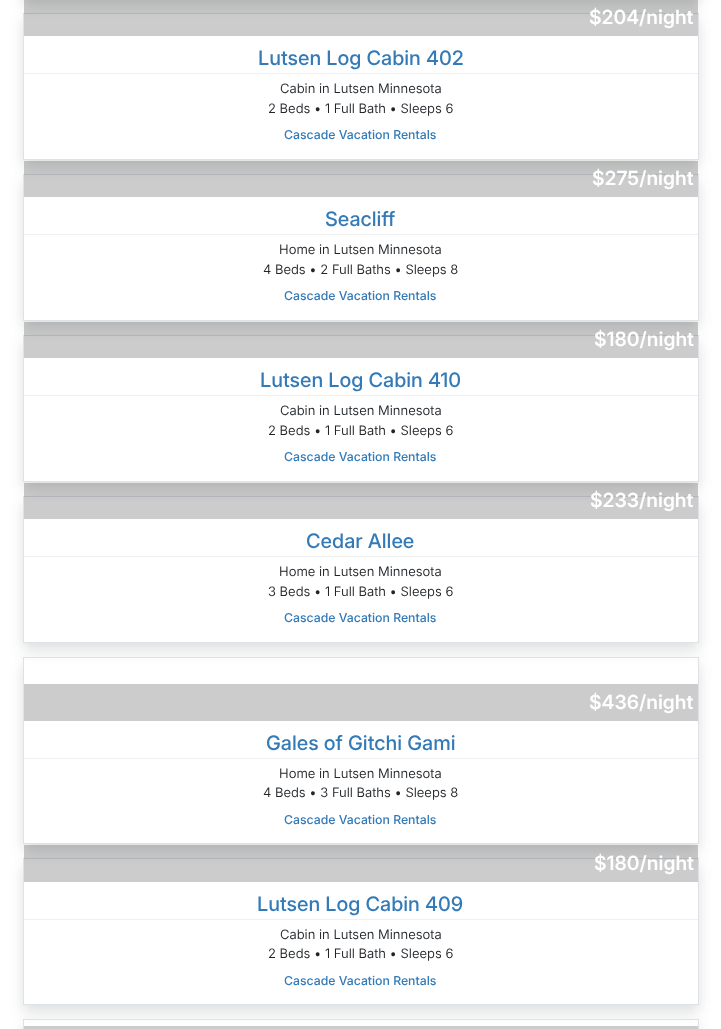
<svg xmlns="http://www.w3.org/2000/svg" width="721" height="1029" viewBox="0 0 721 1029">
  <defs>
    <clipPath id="clip1"><path d="M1 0H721V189H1ZM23 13H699V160H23Z" clip-rule="evenodd"/></clipPath>
    <clipPath id="clip2"><path d="M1 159H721V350H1ZM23 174H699V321H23Z" clip-rule="evenodd"/></clipPath>
    <clipPath id="clip3"><path d="M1 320H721V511H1ZM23 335H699V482H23Z" clip-rule="evenodd"/></clipPath>
    <clipPath id="clip4"><path d="M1 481H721V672H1ZM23 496H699V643H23Z" clip-rule="evenodd"/></clipPath>
    <clipPath id="clip5"><path d="M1 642H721V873H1ZM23 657H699V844H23Z" clip-rule="evenodd"/></clipPath>
    <clipPath id="clip6"><path d="M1 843H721V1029H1ZM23 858H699V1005H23Z" clip-rule="evenodd"/></clipPath>
    <clipPath id="clip7"><path d="M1 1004H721V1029H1ZM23 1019H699V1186H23Z" clip-rule="evenodd"/></clipPath>
  </defs>
  <rect width="100%" height="100%" fill="rgb(255,255,255)"/>
  <rect x="23" y="-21" width="676" height="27" fill="rgba(33,37,41,0.15)" filter="blur(7px)"/>
  <g clip-path="url(#clip1)">
    <rect x="23" y="20" width="676" height="147" fill="rgba(33,37,41,0.15)" filter="blur(7px)"/>
  </g>
  <rect x="23.5" y="13.5" width="675" height="146" fill="none" stroke="rgb(222,226,230)"/>
  <rect x="24" y="0" width="674" height="36" fill="rgba(0,0,0,0.2)"/>
  <text x="589" y="24" font-family="Inter" font-size="19.5" font-weight="600" fill="rgb(255,255,255)">$204/night</text>
  <rect x="24" y="73" width="674" height="1" fill="rgb(239,239,239)"/>
  <text x="258" y="65" font-family="'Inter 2'" font-size="20" font-weight="500" fill="rgb(51,122,183)">Lutsen Log Cabin 402</text>
  <g font-family="Inter" font-size="13" font-weight="300" fill="rgb(33,37,41)">
    <text x="280" y="93">Cabin in Lutsen Minnesota</text>
    <text x="268" y="113">2 Beds • 1 Full Bath • Sleeps 6</text>
  </g>
  <text x="284" y="139" font-family="Inter" font-size="12.25" font-weight="500" fill="rgb(51,122,183)">Cascade Vacation Rentals</text>
  <g clip-path="url(#clip2)">
    <rect x="23" y="181" width="676" height="147" fill="rgba(33,37,41,0.15)" filter="blur(7px)"/>
  </g>
  <rect x="23.5" y="174.5" width="675" height="146" fill="none" stroke="rgb(222,226,230)"/>
  <rect x="24" y="161" width="674" height="36" fill="rgba(0,0,0,0.2)"/>
  <text x="592" y="185" font-family="Inter" font-size="19.5" font-weight="600" fill="rgb(255,255,255)">$275/night</text>
  <rect x="24" y="234" width="674" height="1" fill="rgb(239,239,239)"/>
  <text x="325" y="226" font-family="'Inter 2'" font-size="20" font-weight="500" fill="rgb(51,122,183)">Seacliff</text>
  <g font-family="Inter" font-size="13" font-weight="300" fill="rgb(33,37,41)">
    <text x="279" y="254">Home in Lutsen Minnesota</text>
    <text x="263" y="274">4 Beds • 2 Full Baths • Sleeps 8</text>
  </g>
  <text x="284" y="300" font-family="Inter" font-size="12.25" font-weight="500" fill="rgb(51,122,183)">Cascade Vacation Rentals</text>
  <g clip-path="url(#clip3)">
    <rect x="23" y="342" width="676" height="147" fill="rgba(33,37,41,0.15)" filter="blur(7px)"/>
  </g>
  <rect x="23.5" y="335.5" width="675" height="146" fill="none" stroke="rgb(222,226,230)"/>
  <rect x="24" y="322" width="674" height="36" fill="rgba(0,0,0,0.2)"/>
  <text x="594" y="346" font-family="Inter" font-size="19.5" font-weight="600" fill="rgb(255,255,255)">$180/night</text>
  <rect x="24" y="395" width="674" height="1" fill="rgb(239,239,239)"/>
  <text x="260" y="387" font-family="'Inter 2'" font-size="20" font-weight="500" fill="rgb(51,122,183)">Lutsen Log Cabin 410</text>
  <g font-family="Inter" font-size="13" font-weight="300" fill="rgb(33,37,41)">
    <text x="280" y="415">Cabin in Lutsen Minnesota</text>
    <text x="268" y="435">2 Beds • 1 Full Bath • Sleeps 6</text>
  </g>
  <text x="284" y="461" font-family="Inter" font-size="12.25" font-weight="500" fill="rgb(51,122,183)">Cascade Vacation Rentals</text>
  <g clip-path="url(#clip4)">
    <rect x="23" y="503" width="676" height="147" fill="rgba(33,37,41,0.15)" filter="blur(7px)"/>
  </g>
  <rect x="23.5" y="496.5" width="675" height="146" fill="none" stroke="rgb(222,226,230)"/>
  <rect x="24" y="483" width="674" height="36" fill="rgba(0,0,0,0.2)"/>
  <text x="590" y="507" font-family="Inter" font-size="19.5" font-weight="600" fill="rgb(255,255,255)">$233/night</text>
  <rect x="24" y="556" width="674" height="1" fill="rgb(239,239,239)"/>
  <text x="306" y="548" font-family="'Inter 2'" font-size="20" font-weight="500" fill="rgb(51,122,183)">Cedar Allee</text>
  <g font-family="Inter" font-size="13" font-weight="300" fill="rgb(33,37,41)">
    <text x="279" y="576">Home in Lutsen Minnesota</text>
    <text x="268" y="596">3 Beds • 1 Full Bath • Sleeps 6</text>
  </g>
  <text x="284" y="622" font-family="Inter" font-size="12.25" font-weight="500" fill="rgb(51,122,183)">Cascade Vacation Rentals</text>
  <g clip-path="url(#clip5)">
    <rect x="23" y="664" width="676" height="187" fill="rgba(33,37,41,0.15)" filter="blur(7px)"/>
  </g>
  <rect x="23.5" y="657.5" width="675" height="186" fill="none" stroke="rgb(222,226,230)"/>
  <rect x="24" y="684" width="674" height="37" fill="rgb(204,204,204)"/>
  <text x="589" y="709" font-family="Inter" font-size="19.5" font-weight="600" fill="rgb(255,255,255)">$436/night</text>
  <rect x="24" y="758" width="674" height="1" fill="rgb(239,239,239)"/>
  <text x="266" y="750" font-family="'Inter 2'" font-size="20" font-weight="500" fill="rgb(51,122,183)">Gales of Gitchi Gami</text>
  <g font-family="Inter" font-size="13" font-weight="300" fill="rgb(33,37,41)">
    <text x="279" y="778">Home in Lutsen Minnesota</text>
    <text x="263" y="797">4 Beds • 3 Full Baths • Sleeps 8</text>
  </g>
  <text x="284" y="824" font-family="Inter" font-size="12.25" font-weight="500" fill="rgb(51,122,183)">Cascade Vacation Rentals</text>
  <g clip-path="url(#clip6)">
    <rect x="23" y="865" width="676" height="147" fill="rgba(33,37,41,0.15)" filter="blur(7px)"/>
  </g>
  <rect x="23.5" y="858.5" width="675" height="146" fill="none" stroke="rgb(222,226,230)"/>
  <rect x="24" y="845" width="674" height="37" fill="rgba(0,0,0,0.2)"/>
  <text x="594" y="870" font-family="Inter" font-size="19.5" font-weight="600" fill="rgb(255,255,255)">$180/night</text>
  <rect x="24" y="919" width="674" height="1" fill="rgb(239,239,239)"/>
  <text x="257" y="911" font-family="'Inter 2'" font-size="20" font-weight="500" fill="rgb(51,122,183)">Lutsen Log Cabin 409</text>
  <g font-family="Inter" font-size="13" font-weight="300" fill="rgb(33,37,41)">
    <text x="280" y="939">Cabin in Lutsen Minnesota</text>
    <text x="268" y="958">2 Beds • 1 Full Bath • Sleeps 6</text>
  </g>
  <text x="284" y="985" font-family="Inter" font-size="12.25" font-weight="500" fill="rgb(51,122,183)">Cascade Vacation Rentals</text>
  <g clip-path="url(#clip7)">
    <rect x="23" y="1026" width="676" height="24" fill="rgba(33,37,41,0.15)" filter="blur(7px)"/>
  </g>
  <rect x="23.5" y="1019.5" width="675" height="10" fill="none" stroke="rgb(222,226,230)"/>
  <rect x="24" y="1026" width="674" height="3" fill="rgb(204,204,204)"/>
</svg>
